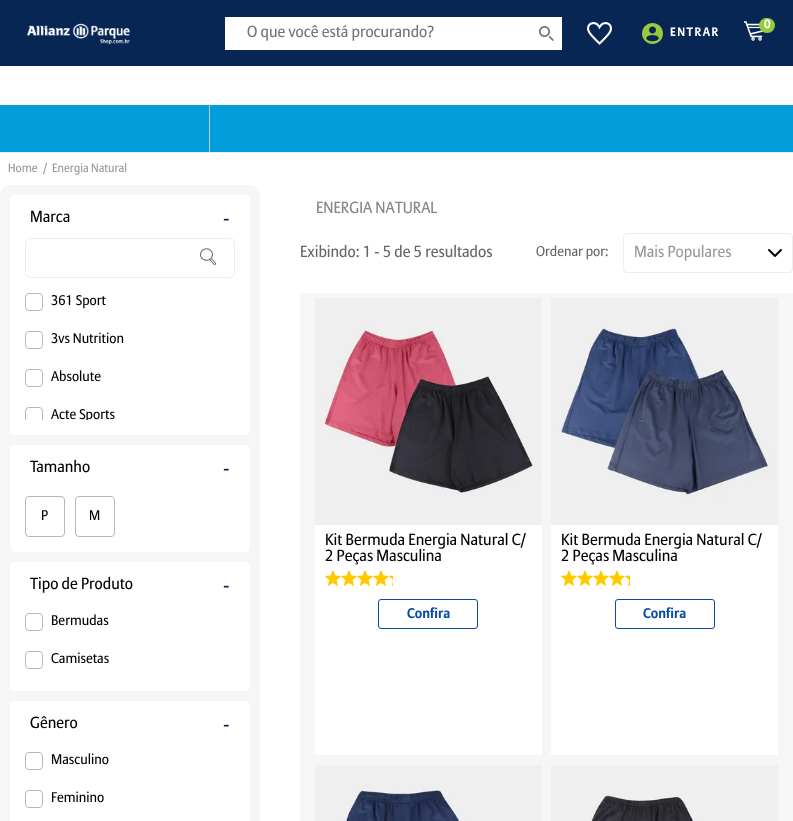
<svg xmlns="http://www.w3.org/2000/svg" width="793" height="821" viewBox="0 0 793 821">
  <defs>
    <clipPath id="clip1"><rect x="25" y="290" width="210" height="130"/></clipPath>
    <clipPath id="clip2"><rect x="325" y="533" width="207" height="32"/></clipPath>
    <clipPath id="clip3"><rect x="561" y="533" width="207" height="32"/></clipPath>
  </defs>
  <rect width="100%" height="100%" fill="rgb(255,255,255)"/>
  <rect x="0" y="0" width="793" height="66" fill="rgb(8,38,84)"/>
  <image x="26" y="23" width="104" height="22" href="pic1.png"/>
  <rect x="225" y="17" width="337" height="33" fill="rgb(255,255,255)"/>
  <text x="247" y="37" font-family="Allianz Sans" font-size="16" fill="rgb(117,117,117)">O que você está procurando?</text>
  <image x="539" y="26" width="15" height="15" href="pic2.png"/>
  <image x="587" y="22" width="25" height="23" href="pic3.png"/>
  <image x="744" y="21" width="19" height="20" href="pic4.png"/>
  <rect x="759" y="18" width="16" height="15" rx="7.5" fill="rgb(151,202,60)"/>
  <text x="764" y="28" font-family="Allianz Sans" font-size="12" font-weight="bold" fill="rgb(255,255,255)">0</text>
  <image x="642" y="23" width="21" height="21" href="pic5.png"/>
  <text x="670" y="36" font-family="Allianz Sans" font-size="12" font-weight="bold" letter-spacing="1.5" fill="rgb(255,255,255)">ENTRAR</text>
  <rect x="0" y="105" width="793" height="47" fill="rgb(2,157,219)"/>
  <rect x="0" y="152" width="793" height="1" fill="rgb(238,238,238)"/>
  <rect x="209" y="105" width="1" height="47" fill="rgb(197,199,201)"/>
  <g font-family="Allianz Sans" font-size="12" fill="rgb(155,152,155)">
    <text x="8" y="172">Home</text>
    <text x="43" y="172">/</text>
    <text x="52" y="172">Energia Natural</text>
  </g>
  <rect x="0" y="185" width="260" height="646" rx="10" fill="rgb(246,246,247)"/>
  <rect x="10" y="195" width="240" height="240" rx="5" fill="rgb(255,255,255)"/>
  <text x="30" y="222" font-family="Allianz Sans" font-size="16" fill="rgb(0,0,0)">Marca</text>
  <text x="223" y="225" font-family="Allianz Sans" font-size="20" fill="rgb(8,38,84)">-</text>
  <rect x="25.5" y="238.5" width="209" height="39" rx="4.5" fill="none" stroke="rgb(238,238,238)"/>
  <image x="200" y="248" width="16" height="17" href="pic6.png"/>
  <rect x="25.5" y="293.5" width="17" height="17" rx="3.5" fill="none" stroke="rgb(183,183,183)"/>
  <text x="51" y="305" font-family="Allianz Sans" font-size="14" fill="rgb(0,0,0)">361 Sport</text>
  <rect x="25.5" y="331.5" width="17" height="17" rx="3.5" fill="none" stroke="rgb(183,183,183)"/>
  <text x="51" y="343" font-family="Allianz Sans" font-size="14" fill="rgb(0,0,0)">3vs Nutrition</text>
  <rect x="25.5" y="369.5" width="17" height="17" rx="3.5" fill="none" stroke="rgb(183,183,183)"/>
  <text x="51" y="381" font-family="Allianz Sans" font-size="14" fill="rgb(0,0,0)">Absolute</text>
  <g clip-path="url(#clip1)">
    <rect x="25.5" y="407.5" width="17" height="17" rx="3.5" fill="none" stroke="rgb(183,183,183)"/>
    <text x="51" y="419" font-family="Allianz Sans" font-size="14" fill="rgb(0,0,0)">Acte Sports</text>
  </g>
  <rect x="10" y="445" width="240" height="107" rx="5" fill="rgb(255,255,255)"/>
  <text x="30" y="472" font-family="Allianz Sans" font-size="16" fill="rgb(0,0,0)">Tamanho</text>
  <text x="223" y="475" font-family="Allianz Sans" font-size="20" fill="rgb(8,38,84)">-</text>
  <rect x="25.5" y="496.5" width="39" height="40" rx="3.5" fill="none" stroke="rgb(183,183,183)"/>
  <text x="41" y="520" font-family="Allianz Sans" font-size="14" fill="rgb(0,0,0)">P</text>
  <rect x="75.5" y="496.5" width="39" height="40" rx="3.5" fill="none" stroke="rgb(183,183,183)"/>
  <text x="89" y="520" font-family="Allianz Sans" font-size="14" fill="rgb(0,0,0)">M</text>
  <rect x="10" y="562" width="240" height="129" rx="5" fill="rgb(255,255,255)"/>
  <text x="30" y="589" font-family="Allianz Sans" font-size="16" fill="rgb(0,0,0)">Tipo de Produto</text>
  <text x="223" y="592" font-family="Allianz Sans" font-size="20" fill="rgb(8,38,84)">-</text>
  <rect x="25.5" y="613.5" width="17" height="17" rx="3.5" fill="none" stroke="rgb(183,183,183)"/>
  <text x="51" y="625" font-family="Allianz Sans" font-size="14" fill="rgb(0,0,0)">Bermudas</text>
  <rect x="25.5" y="651.5" width="17" height="17" rx="3.5" fill="none" stroke="rgb(183,183,183)"/>
  <text x="51" y="663" font-family="Allianz Sans" font-size="14" fill="rgb(0,0,0)">Camisetas</text>
  <rect x="10" y="701" width="240" height="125" rx="5" fill="rgb(255,255,255)"/>
  <text x="30" y="728" font-family="Allianz Sans" font-size="16" fill="rgb(0,0,0)">Gênero</text>
  <text x="223" y="731" font-family="Allianz Sans" font-size="20" fill="rgb(8,38,84)">-</text>
  <rect x="25.5" y="752.5" width="17" height="17" rx="3.5" fill="none" stroke="rgb(183,183,183)"/>
  <text x="51" y="764" font-family="Allianz Sans" font-size="14" fill="rgb(0,0,0)">Masculino</text>
  <rect x="25.5" y="790.5" width="17" height="17" rx="3.5" fill="none" stroke="rgb(183,183,183)"/>
  <text x="51" y="802" font-family="Allianz Sans" font-size="14" fill="rgb(0,0,0)">Feminino</text>
  <text x="316" y="213" font-family="Allianz Sans" font-size="16" fill="rgb(135,135,135)">ENERGIA NATURAL</text>
  <text x="300" y="257" font-family="Allianz Sans" font-size="16" fill="rgb(102,102,102)">Exibindo: 1 - 5 de 5 resultados</text>
  <text x="536" y="256" font-family="Allianz Sans" font-size="14" fill="rgb(102,102,102)">Ordenar por:</text>
  <image x="768" y="249" width="14" height="8" href="pic7.png"/>
  <rect x="623.5" y="233.5" width="169" height="39" rx="3.5" fill="none" stroke="rgb(238,238,238)"/>
  <text x="634" y="257" font-family="Allianz Sans" font-size="16" fill="rgb(155,152,155)">Mais Populares</text>
  <rect x="300" y="293" width="493" height="528" fill="rgb(246,246,246)"/>
  <rect x="315" y="525" width="227" height="230" fill="rgb(255,255,255)"/>
  <image x="315" y="298" width="227" height="227" href="pic8.png"/>
  <g clip-path="url(#clip2)">
    <text x="325" y="545" font-family="Allianz Sans" font-size="16" fill="rgb(0,0,0)">Kit Bermuda Energia Natural C/</text>
  </g>
  <text x="325" y="561" font-family="Allianz Sans" font-size="16" fill="rgb(0,0,0)">2 Peças Masculina</text>
  <image x="325" y="570" width="16" height="16" href="pic9.png"/>
  <image x="341" y="570" width="16" height="16" href="pic9.png"/>
  <image x="357" y="570" width="16" height="16" href="pic9.png"/>
  <image x="373" y="570" width="16" height="16" href="pic9.png"/>
  <image x="389" y="575" width="4" height="11" href="pic10.png"/>
  <rect x="378.5" y="599.5" width="99" height="29" rx="2.5" fill="none" stroke="rgb(8,74,173)"/>
  <text x="407" y="618" font-family="Allianz Sans" font-size="14" font-weight="bold" fill="rgb(8,74,173)">Confira</text>
  <rect x="551" y="525" width="227" height="230" fill="rgb(255,255,255)"/>
  <image x="551" y="298" width="227" height="227" href="pic11.png"/>
  <g clip-path="url(#clip3)">
    <text x="561" y="545" font-family="Allianz Sans" font-size="16" fill="rgb(0,0,0)">Kit Bermuda Energia Natural C/</text>
  </g>
  <text x="561" y="561" font-family="Allianz Sans" font-size="16" fill="rgb(0,0,0)">2 Peças Masculina</text>
  <image x="561" y="570" width="16" height="16" href="pic9.png"/>
  <image x="577" y="570" width="16" height="16" href="pic9.png"/>
  <image x="593" y="570" width="16" height="16" href="pic9.png"/>
  <image x="609" y="570" width="16" height="16" href="pic9.png"/>
  <image x="625" y="575" width="5" height="11" href="pic12.png"/>
  <rect x="615.5" y="599.5" width="99" height="29" rx="2.5" fill="none" stroke="rgb(8,74,173)"/>
  <text x="643" y="618" font-family="Allianz Sans" font-size="14" font-weight="bold" fill="rgb(8,74,173)">Confira</text>
  <image x="315" y="765" width="227" height="56" href="pic13.png"/>
  <image x="551" y="765" width="227" height="56" href="pic14.png"/>
</svg>
